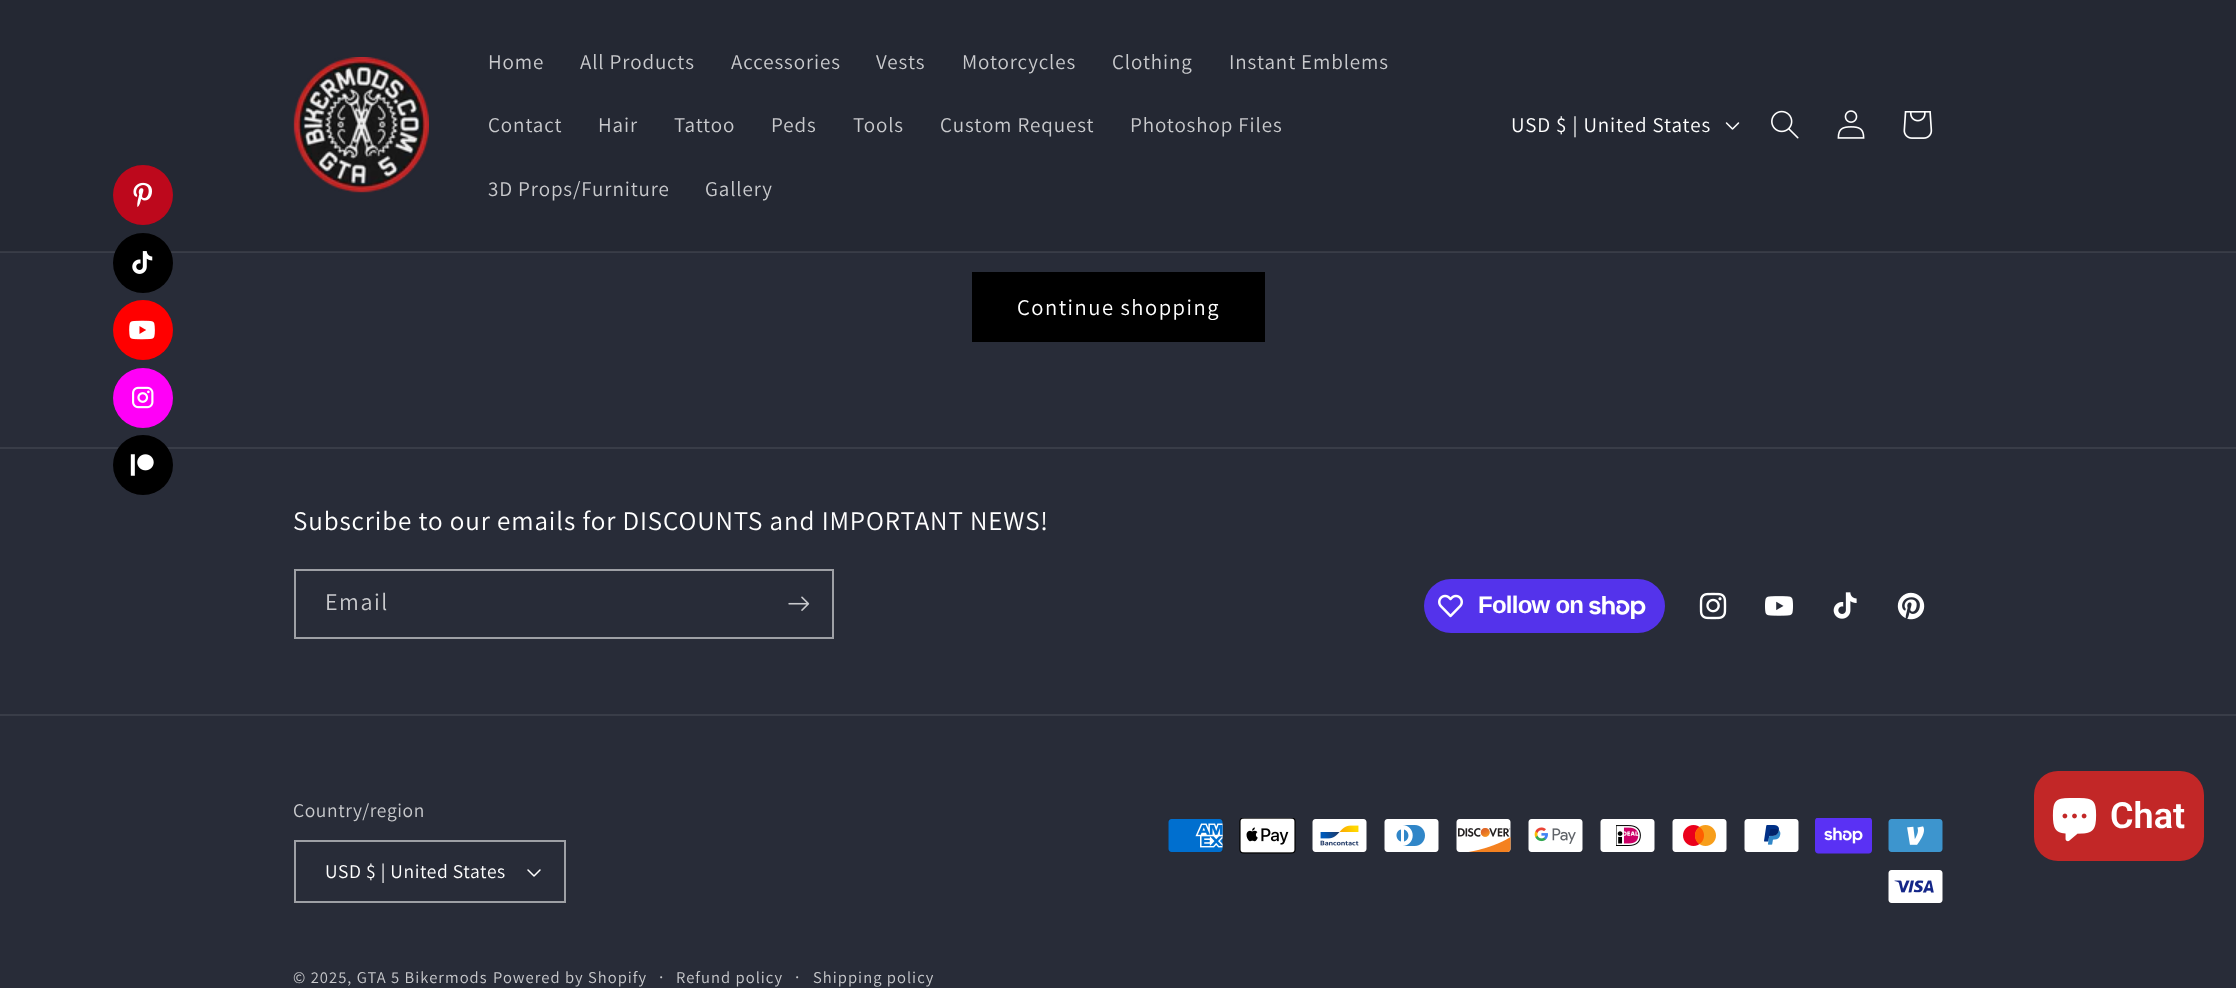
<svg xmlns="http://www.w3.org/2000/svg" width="2236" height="988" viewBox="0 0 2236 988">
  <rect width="100%" height="100%" fill="rgb(40,44,56)"/>
  <rect x="0" y="252" width="2236" height="1" fill="rgb(57,61,72)"/>
  <rect x="0" y="0" width="2236" height="251" fill="rgb(36,40,51)"/>
  <rect x="0" y="251" width="2236" height="1" fill="rgb(54,57,67)"/>
  <image x="293" y="57" width="136" height="136" href="pic1.png"/>
  <g font-family="Assistant" font-size="21" letter-spacing="0.9" fill="rgb(201,202,205)">
    <text x="488" y="69">Home</text>
    <text x="580" y="69">All Products</text>
    <text x="731" y="69">Accessories</text>
    <text x="876" y="69">Vests</text>
    <text x="962" y="69">Motorcycles</text>
    <text x="1112" y="69">Clothing</text>
    <text x="1229" y="69">Instant Emblems</text>
    <text x="488" y="132">Contact</text>
    <text x="598" y="132">Hair</text>
    <text x="674" y="132">Tattoo</text>
    <text x="771" y="132">Peds</text>
    <text x="853" y="132">Tools</text>
    <text x="940" y="132">Custom Request</text>
    <text x="1130" y="132">Photoshop Files</text>
    <text x="488" y="196">3D Props/Furniture</text>
    <text x="705" y="196">Gallery</text>
  </g>
  <text x="1511" y="132" font-family="Assistant" font-size="21" letter-spacing="0.9" fill="rgb(255,255,255)">USD $ | United States</text>
  <image x="1725" y="122" width="15" height="8" href="pic2.png"/>
  <image x="1771" y="110" width="28" height="29" href="pic3.png"/>
  <image x="1837" y="110" width="28" height="29" href="pic4.png"/>
  <image x="1903" y="111" width="30" height="28" href="pic5.png"/>
  <circle cx="143" cy="195" r="30" fill="rgb(189,8,28)"/>
  <image x="133" y="182" width="19" height="25" href="pic6.png"/>
  <circle cx="143" cy="263" r="30" fill="rgb(0,0,0)"/>
  <image x="132" y="251" width="21" height="23" href="pic7.png"/>
  <circle cx="143" cy="330" r="30" fill="rgb(255,0,0)"/>
  <image x="129" y="320" width="26" height="20" href="pic8.png"/>
  <circle cx="143" cy="398" r="30" fill="rgb(255,0,247)"/>
  <image x="132" y="386" width="22" height="23" href="pic9.png"/>
  <rect x="0" y="447" width="2236" height="2" fill="rgb(57,61,72)"/>
  <circle cx="143" cy="465" r="30" fill="rgb(0,0,0)"/>
  <image x="130" y="454" width="24" height="22" href="pic10.png"/>
  <rect x="972" y="272" width="293" height="70" fill="rgb(0,0,0)"/>
  <text x="1017" y="315" font-family="Assistant" font-size="22.5" letter-spacing="1.5" fill="rgb(255,255,255)">Continue shopping</text>
  <text x="293" y="530" font-family="Assistant" font-size="27" letter-spacing="0.9" fill="rgb(255,255,255)">Subscribe to our emails for DISCOUNTS and IMPORTANT NEWS!</text>
  <rect x="295" y="570" width="538" height="68" fill="none" stroke="rgb(158,160,165)" stroke-width="2"/>
  <text x="325" y="610" font-family="Assistant" font-size="24" letter-spacing="1.5" fill="rgb(201,202,205)">Email</text>
  <image x="788" y="596" width="22" height="15" href="pic11.png"/>
  <rect x="1424" y="579" width="241" height="54" rx="27" fill="rgb(84,51,235)"/>
  <image x="1438" y="594" width="25" height="24" href="pic12.png"/>
  <text x="1478" y="613" font-family="Liberation Sans" font-size="24" font-weight="bold" letter-spacing="-0.75" fill="rgb(255,255,255)">Follow on</text>
  <image x="1589" y="596" width="57" height="23" href="pic13.png"/>
  <image x="1699" y="592" width="28" height="28" href="pic14.png"/>
  <image x="1765" y="596" width="28" height="20" href="pic15.png"/>
  <image x="1833" y="592" width="24" height="27" href="pic16.png"/>
  <image x="1897" y="592" width="28" height="28" href="pic17.png"/>
  <rect x="0" y="714" width="2236" height="2" fill="rgb(57,61,72)"/>
  <text x="293" y="817" font-family="Assistant" font-size="19.5" letter-spacing="0.6" fill="rgb(201,202,205)">Country/region</text>
  <image x="527" y="869" width="14" height="8" href="pic18.png"/>
  <rect x="295" y="841" width="270" height="61" fill="none" stroke="rgb(158,160,165)" stroke-width="2"/>
  <text x="325" y="878" font-family="Assistant" font-size="19.5" letter-spacing="0.6" fill="rgb(255,255,255)">USD $ | United States</text>
  <image x="1168" y="819" width="55" height="33" href="pic19.png"/>
  <image x="1239" y="818" width="57" height="36" href="pic20.png"/>
  <image x="1312" y="819" width="55" height="33" href="pic21.png"/>
  <image x="1384" y="819" width="55" height="33" href="pic22.png"/>
  <image x="1456" y="819" width="55" height="33" href="pic23.png"/>
  <image x="1528" y="819" width="55" height="33" href="pic24.png"/>
  <image x="1600" y="819" width="55" height="33" href="pic25.png"/>
  <image x="1672" y="819" width="55" height="33" href="pic26.png"/>
  <image x="1744" y="819" width="55" height="33" href="pic27.png"/>
  <image x="1815" y="818" width="57" height="36" href="pic28.png"/>
  <image x="1888" y="819" width="55" height="33" href="pic29.png"/>
  <image x="1888" y="870" width="55" height="33" href="pic30.png"/>
  <g font-family="Assistant" font-size="16.5" letter-spacing="1.05" fill="rgb(201,202,205)">
    <text x="293" y="983">© 2025, GTA 5 Bikermods</text>
    <text x="493" y="983">Powered by Shopify</text>
  </g>
  <text x="659" y="983" font-family="Assistant" font-size="18" letter-spacing="1.05" fill="rgb(201,202,205)">·</text>
  <text x="676" y="983" font-family="Assistant" font-size="16.5" letter-spacing="1.05" fill="rgb(201,202,205)">Refund policy</text>
  <text x="795" y="983" font-family="Assistant" font-size="18" letter-spacing="1.05" fill="rgb(201,202,205)">·</text>
  <text x="813" y="983" font-family="Assistant" font-size="16.5" letter-spacing="1.05" fill="rgb(201,202,205)">Shipping policy</text>
  <rect x="2034" y="771" width="170" height="90" rx="24" fill="rgb(194,39,39)"/>
  <image x="2052" y="798" width="45" height="44" href="pic31.png"/>
  <text x="2110" y="828" font-family="Roboto" font-size="36" font-weight="600" fill="rgb(255,255,255)">Chat</text>
</svg>
